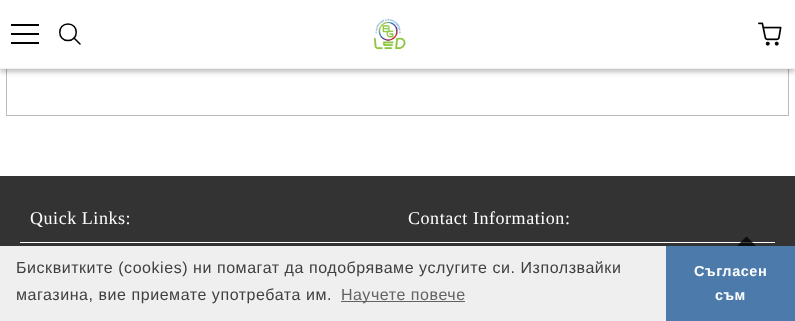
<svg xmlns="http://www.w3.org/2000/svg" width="795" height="321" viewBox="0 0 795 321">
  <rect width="100%" height="100%" fill="rgb(255,255,255)"/>
  <rect x="6.5" y="-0.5" width="782" height="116" fill="none" stroke="rgb(188,188,188)"/>
  <rect x="0" y="3" width="795" height="69" fill="rgba(0,0,0,0.25)" filter="blur(2.5px)"/>
  <rect x="0" y="68" width="795" height="1" fill="rgb(241,241,241)"/>
  <rect x="0" y="0" width="795" height="68" fill="rgb(255,255,255)"/>
  <rect x="11" y="24" width="28" height="2" fill="rgb(0,0,0)"/>
  <rect x="11" y="33" width="28" height="2" fill="rgb(0,0,0)"/>
  <rect x="11" y="42" width="28" height="2" fill="rgb(0,0,0)"/>
  <path d="M68 24C57 24 57 40.5 68 40.5C79 40.5 79 24 68 24Z" fill="none" stroke="rgb(0,0,0)" stroke-width="1.5"/>
  <path d="M74 38L80 44" fill="none" stroke="rgb(0,0,0)" stroke-width="1.5" stroke-linecap="round"/>
  <image x="374" y="18" width="32" height="32" href="pic1.png"/>
  <image x="758" y="22" width="24" height="24" href="pic2.png"/>
  <rect x="0" y="176" width="795" height="70" fill="rgb(51,51,51)"/>
  <rect x="20" y="242" width="755" height="1" fill="rgb(255,255,255)"/>
  <g font-family="Liberation Serif" font-size="18" letter-spacing="0.55" fill="rgb(255,255,255)">
    <text x="30" y="224">Quick Links:</text>
    <text x="408" y="224">Contact Information:</text>
  </g>
  <path d="M732.5 267.5L724 259L746.5 236.5L755 245Z" fill="rgba(0,0,0,0.5)"/>
  <path d="M766 273L738 245L746.5 236.5L774.5 264.5Z" fill="rgba(0,0,0,0.5)"/>
  <rect x="0" y="246" width="666" height="75" fill="rgb(239,239,239)"/>
  <g font-family="Liberation Sans" font-size="16" letter-spacing="0.55" fill="rgb(64,64,64)">
    <text>
      <tspan x="16" y="273">Бисквитките (cookies) ни помагат да подобряваме услугите си. Използвайки</tspan>
      <tspan x="16" y="300">магазина, вие приемате употребата им.</tspan>
    </text>
  </g>
  <rect x="341" y="301" width="124" height="1" fill="rgb(99,99,99)"/>
  <text x="341" y="300" font-family="Liberation Sans" font-size="16" letter-spacing="0.55" fill="rgb(99,99,99)">Научете повече</text>
  <rect x="666" y="246" width="129" height="75" fill="rgb(76,122,171)"/>
  <g font-family="Liberation Sans" font-size="14.5" font-weight="bold" letter-spacing="0.55" fill="rgb(255,255,255)">
    <text x="694" y="276">Съгласен</text>
    <text x="715" y="300">съм</text>
  </g>
</svg>
